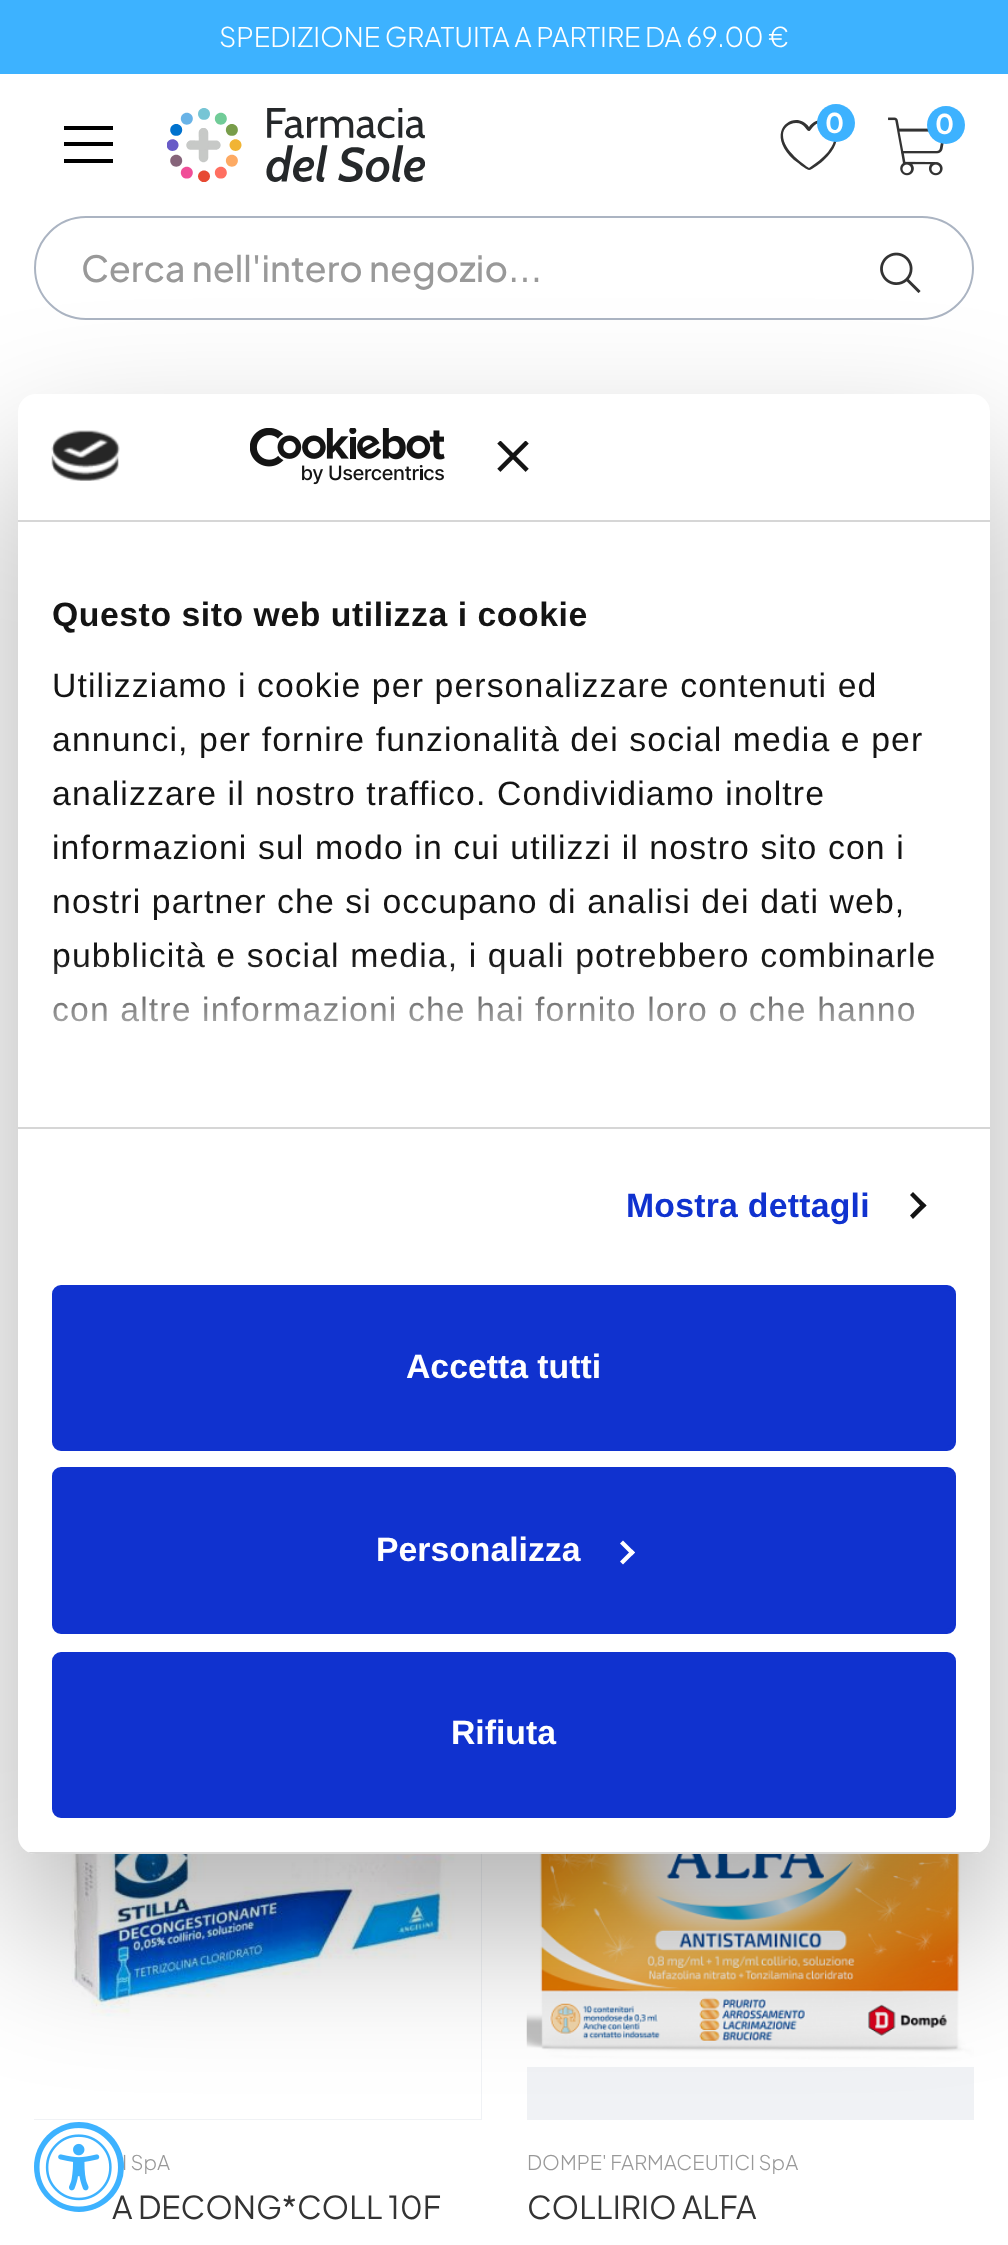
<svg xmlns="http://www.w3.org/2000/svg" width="1008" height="2245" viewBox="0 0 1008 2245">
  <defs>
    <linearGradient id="g1" gradientUnits="userSpaceOnUse" x1="489" y1="1127" x2="489" y2="958"><stop offset="0" stop-color="rgb(255,255,255)"/><stop offset="0.5" stop-color="rgb(255,255,255)" stop-opacity="0.8"/><stop offset="1" stop-color="rgb(255,255,255)" stop-opacity="0"/></linearGradient>
    <clipPath id="clip1"><rect x="18" y="394" width="972" height="1460" rx="18"/></clipPath>
  </defs>
  <rect width="100%" height="100%" fill="rgb(255,255,255)"/>
  <rect x="0" y="0" width="1008" height="74" fill="rgb(61,178,255)"/>
  <text x="219" y="47" font-family="Plus Jakarta Sans" font-size="27" font-weight="300" fill="rgb(255,255,255)">SPEDIZIONE GRATUITA A PARTIRE DA 69.00 €</text>
  <rect x="64" y="126" width="49" height="4" fill="rgb(0,0,0)"/>
  <rect x="64" y="142" width="49" height="4" fill="rgb(0,0,0)"/>
  <rect x="64" y="159" width="49" height="4" fill="rgb(0,0,0)"/>
  <image x="167" y="108" width="258" height="74" href="pic1.png"/>
  <path d="M809 170C806 170 796 161 794 160C762 130 796 108 809 127C821 108 856 130 824 160C822 162 812 170 809 170ZM796 123C789 123 783 128 783 135C783 151 805 165 809 168C816 163 823 158 828 152C830 149 833 145 834 141C836 133 833 125 824 123C813 121 811 132 809 131C806 131 805 123 796 123Z" fill="rgb(51,51,51)"/>
  <circle cx="836" cy="123" r="19" fill="rgb(61,178,255)"/>
  <text x="825" y="133" font-family="Plus Jakarta Sans" font-size="27" font-weight="bold" fill="rgb(255,255,255)">0</text>
  <image x="888" y="117" width="56" height="59" href="pic2.png"/>
  <circle cx="946" cy="125" r="19" fill="rgb(61,178,255)"/>
  <text x="935" y="134" font-family="Plus Jakarta Sans" font-size="27" font-weight="bold" fill="rgb(255,255,255)">0</text>
  <rect x="35" y="217" width="938" height="102" rx="51" fill="none" stroke="rgb(171,180,194)" stroke-width="2"/>
  <text x="81" y="282" font-family="Plus Jakarta Sans" font-size="36" font-weight="500" fill="rgb(153,153,153)">Cerca nell'intero negozio...</text>
  <image x="880" y="252" width="41" height="41" href="pic3.png"/>
  <rect x="34" y="1854" width="448" height="266" fill="rgb(240,242,245)"/>
  <image x="34" y="1853" width="447" height="266" href="pic4.png"/>
  <text x="122" y="2170" font-family="Plus Jakarta Sans" font-size="20.25" font-weight="300" fill="rgb(153,153,153)">I SpA</text>
  <text x="112" y="2219" font-family="Plus Jakarta Sans" font-size="31.5" fill="rgb(51,51,51)">A DECONG*COLL 10F</text>
  <rect x="527" y="2066" width="447" height="54" fill="rgb(240,242,245)"/>
  <image x="526" y="1853" width="448" height="214" href="pic5.png"/>
  <text x="527" y="2170" font-family="Plus Jakarta Sans" font-size="20.25" font-weight="300" fill="rgb(153,153,153)">DOMPE' FARMACEUTICI SpA</text>
  <text x="527" y="2219" font-family="Plus Jakarta Sans" font-size="31.5" fill="rgb(51,51,51)">COLLIRIO ALFA</text>
  <circle cx="79" cy="2167" r="45" fill="rgb(61,178,255)"/>
  <image x="39" y="2128" width="79" height="79" href="pic9.png"/>
  <rect x="18" y="466" width="972" height="1460" rx="18" fill="rgba(0,0,0,0.3)" filter="blur(76.5px)"/>
  <rect x="18" y="394" width="972" height="1460" rx="18" fill="rgb(255,255,255)"/>
  <rect x="18" y="520" width="972" height="2" fill="rgb(214,214,214)"/>
  <image x="51" y="430" width="69" height="51" href="pic6.png"/>
  <image x="250" y="428" width="195" height="57" href="pic7.png"/>
  <image x="497" y="441" width="32" height="31" href="pic8.png"/>
  <rect x="18" y="1127" width="972" height="2" fill="rgb(214,214,214)"/>
  <text x="52" y="626" font-family="Liberation Sans" font-size="33.75" font-weight="bold" letter-spacing="0.55" fill="rgb(20,20,20)">Questo sito web utilizza i cookie</text>
  <g font-family="Liberation Sans" font-size="33.75" letter-spacing="1.12" fill="rgb(20,20,20)">
    <text>
      <tspan x="52" y="697">Utilizziamo i cookie per personalizzare contenuti ed</tspan>
      <tspan x="52" y="751">annunci, per fornire funzionalità dei social media e per</tspan>
      <tspan x="52" y="805">analizzare il nostro traffico. Condividiamo inoltre</tspan>
      <tspan x="52" y="859">informazioni sul modo in cui utilizzi il nostro sito con i</tspan>
      <tspan x="52" y="913">nostri partner che si occupano di analisi dei dati web,</tspan>
      <tspan x="52" y="967">pubblicità e social media, i quali potrebbero combinarle</tspan>
      <tspan x="52" y="1021">con altre informazioni che hai fornito loro o che hanno</tspan>
    </text>
  </g>
  <rect x="53" y="960" width="880" height="62" fill="url(#g1)"/>
  <text x="626" y="1217" font-family="Liberation Sans" font-size="33.75" font-weight="bold" letter-spacing="0.25" fill="rgb(16,50,207)">Mostra dettagli</text>
  <path d="M913 1192L926.5 1205.5L923 1208.5L910 1195Z" fill="rgb(20,20,20)"/>
  <path d="M923 1202.5L926.5 1205.5L913 1219L910 1215.5Z" fill="rgb(20,20,20)"/>
  <g clip-path="url(#clip1)">
    <rect x="28" y="1852" width="952" height="2" fill="rgb(214,214,214)"/>
  </g>
  <rect x="54.5" y="1287.5" width="899" height="161" rx="6.5" fill="rgb(16,50,207)" stroke="rgb(16,50,207)" stroke-width="5"/>
  <text x="406" y="1378" font-family="Liberation Sans" font-size="33.75" font-weight="bold" fill="rgb(255,255,255)">Accetta tutti</text>
  <rect x="54.5" y="1469.5" width="899" height="162" rx="6.5" fill="rgb(16,50,207)" stroke="rgb(16,50,207)" stroke-width="5"/>
  <text x="376" y="1561" font-family="Liberation Sans" font-size="33.75" font-weight="bold" fill="rgb(255,255,255)">Personalizza</text>
  <path d="M623 1540.5L635 1552.5L632 1555.5L620 1543.5Z" fill="rgb(255,255,255)"/>
  <path d="M632 1549.5L635 1552.5L623 1564.5L620 1561.5Z" fill="rgb(255,255,255)"/>
  <rect x="54.5" y="1654.5" width="899" height="161" rx="6.5" fill="rgb(16,50,207)" stroke="rgb(16,50,207)" stroke-width="5"/>
  <text x="451" y="1744" font-family="Liberation Sans" font-size="33.75" font-weight="bold" fill="rgb(255,255,255)">Rifiuta</text>
</svg>
